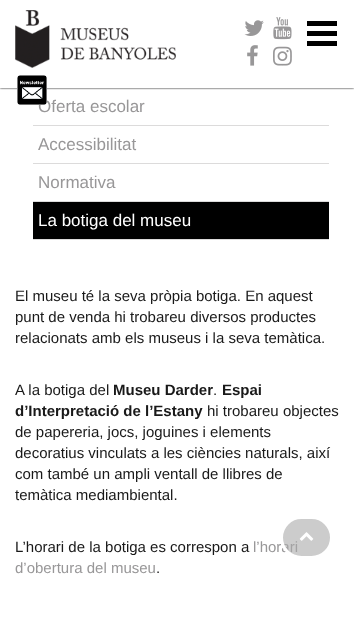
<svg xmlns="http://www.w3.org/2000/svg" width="354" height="629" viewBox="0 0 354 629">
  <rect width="100%" height="100%" fill="rgb(255,255,255)"/>
  <rect x="0" y="0" width="354" height="88" fill="rgb(0,0,0)" filter="blur(1px)"/>
  <rect x="0" y="0" width="354" height="88" fill="rgb(255,255,255)"/>
  <rect x="307" y="21" width="30" height="5" fill="rgb(0,0,0)"/>
  <rect x="307" y="31" width="30" height="5" fill="rgb(0,0,0)"/>
  <rect x="307" y="41" width="30" height="5" fill="rgb(0,0,0)"/>
  <image x="15" y="10" width="161" height="58" href="pic1.png"/>
  <image x="244" y="20" width="20" height="16" href="pic2.png"/>
  <image x="273" y="17" width="19" height="23" href="pic3.png"/>
  <image x="247" y="45" width="11" height="21" href="pic4.png"/>
  <image x="273" y="46" width="19" height="20" href="pic5.png"/>
  <text x="38" y="112" font-family="Liberation Sans" font-size="17" fill="rgb(152,151,152)">Oferta escolar</text>
  <image x="17" y="75" width="30" height="30" href="pic6.png"/>
  <rect x="33" y="125" width="296" height="1" fill="rgb(220,219,219)"/>
  <rect x="33" y="163" width="296" height="1" fill="rgb(220,219,219)"/>
  <text x="38" y="150" font-family="Liberation Sans" font-size="17" fill="rgb(152,151,152)">Accessibilitat</text>
  <rect x="33" y="201" width="296" height="1" fill="rgb(220,219,219)"/>
  <text x="38" y="188" font-family="Liberation Sans" font-size="17" fill="rgb(152,151,152)">Normativa</text>
  <rect x="33" y="239" width="296" height="1" fill="rgb(220,219,219)"/>
  <rect x="33" y="202" width="296" height="37" fill="rgb(0,0,0)"/>
  <text x="38" y="226" font-family="Liberation Sans" font-size="17" fill="rgb(255,255,255)">La botiga del museu</text>
  <g font-family="Liberation Sans" font-size="15" fill="rgb(25,25,25)">
    <text>
      <tspan x="15" y="301">El museu té la seva pròpia botiga. En aquest</tspan>
      <tspan x="15" y="322">punt de venda hi trobareu diversos productes</tspan>
      <tspan x="15" y="343">relacionats amb els museus i la seva temàtica.</tspan>
    </text>
    <text x="15" y="395">A la botiga del</text>
  </g>
  <text x="113" y="395" font-family="Liberation Sans" font-size="15" font-weight="bold" fill="rgb(25,25,25)">Museu Darder</text>
  <text x="213" y="395" font-family="Liberation Sans" font-size="15" fill="rgb(25,25,25)">.</text>
  <g font-family="Liberation Sans" font-size="15" font-weight="bold" fill="rgb(25,25,25)">
    <text x="222" y="395">Espai</text>
    <text x="15" y="416">d’Interpretació de l’Estany</text>
  </g>
  <g font-family="Liberation Sans" font-size="15" fill="rgb(25,25,25)">
    <text x="207" y="416">hi trobareu objectes</text>
    <text>
      <tspan x="15" y="437">de papereria, jocs, joguines i elements</tspan>
      <tspan x="15" y="458">decoratius vinculats a les ciències naturals, així</tspan>
      <tspan x="15" y="479">com també un ampli ventall de llibres de</tspan>
      <tspan x="15" y="500">temàtica mediambiental.</tspan>
    </text>
    <text x="15" y="552">L’horari de la botiga es correspon a</text>
  </g>
  <g font-family="Liberation Sans" font-size="15" fill="rgb(152,151,152)">
    <text x="253" y="552">l’horari</text>
    <text x="15" y="573">d’obertura del museu</text>
  </g>
  <text x="156" y="573" font-family="Liberation Sans" font-size="15" fill="rgb(25,25,25)">.</text>
  <rect x="281.5" y="517.5" width="50" height="40" rx="20" fill="rgba(170,170,170,0.6)" stroke="rgb(255,255,255)" stroke-width="3"/>
  <image x="299" y="532" width="15" height="9" href="pic7.png"/>
</svg>
